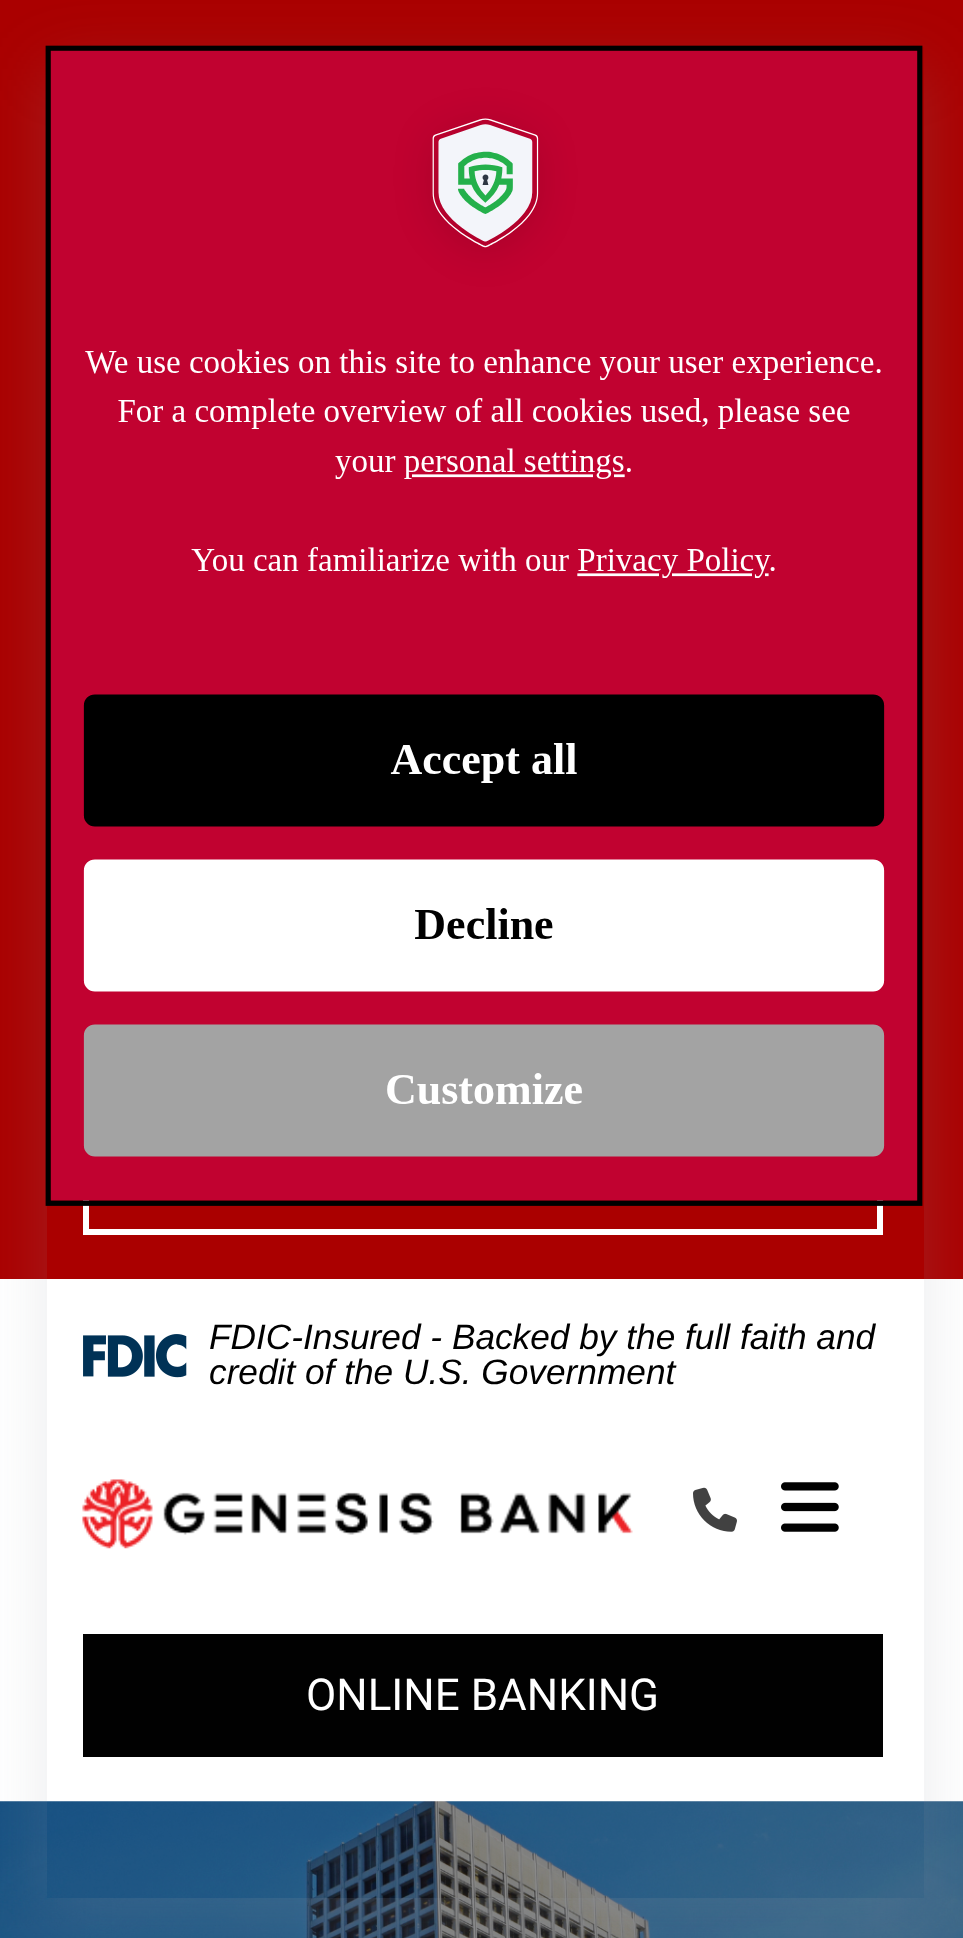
<svg xmlns="http://www.w3.org/2000/svg" width="963" height="1938" viewBox="0 0 963 1938">
  <defs>
    <clipPath id="clip1"><path d="M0 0H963V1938H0ZM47 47H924V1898H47Z" clip-rule="evenodd"/></clipPath>
  </defs>
  <rect width="100%" height="100%" fill="rgb(255,255,255)"/>
  <rect x="0" y="0" width="963" height="1279" fill="rgb(170,0,0)"/>
  <rect x="86" y="1117" width="794" height="115" fill="none" stroke="rgb(255,255,255)" stroke-width="6"/>
  <image x="83" y="1334" width="104" height="44" href="pic2.png"/>
  <image x="82" y="1479" width="551" height="70" href="pic3.png"/>
  <image x="693" y="1487" width="44" height="45" href="pic4.png"/>
  <image x="781" y="1482" width="58" height="50" href="pic5.png"/>
  <rect x="83" y="1634" width="800" height="123" fill="rgb(1,1,1)"/>
  <image x="0" y="1801" width="963" height="137" href="pic6.png"/>
  <g clip-path="url(#clip1)">
    <rect x="47" y="69" width="877" height="1851" fill="rgba(149,157,165,0.2)" filter="blur(33px)"/>
  </g>
  <image x="45" y="45" width="878" height="1161" href="pic1.png"/>
  <g font-family="Liberation Sans" font-size="35.25" font-style="italic" fill="rgb(0,0,0)">
    <text>
      <tspan x="209" y="1349">FDIC-Insured - Backed by the full faith and</tspan>
      <tspan x="209" y="1384">credit of the U.S. Government</tspan>
    </text>
  </g>
  <text x="306" y="1710" font-family="Roboto" font-size="44" fill="rgb(255,255,255)">ONLINE BANKING</text>
</svg>
